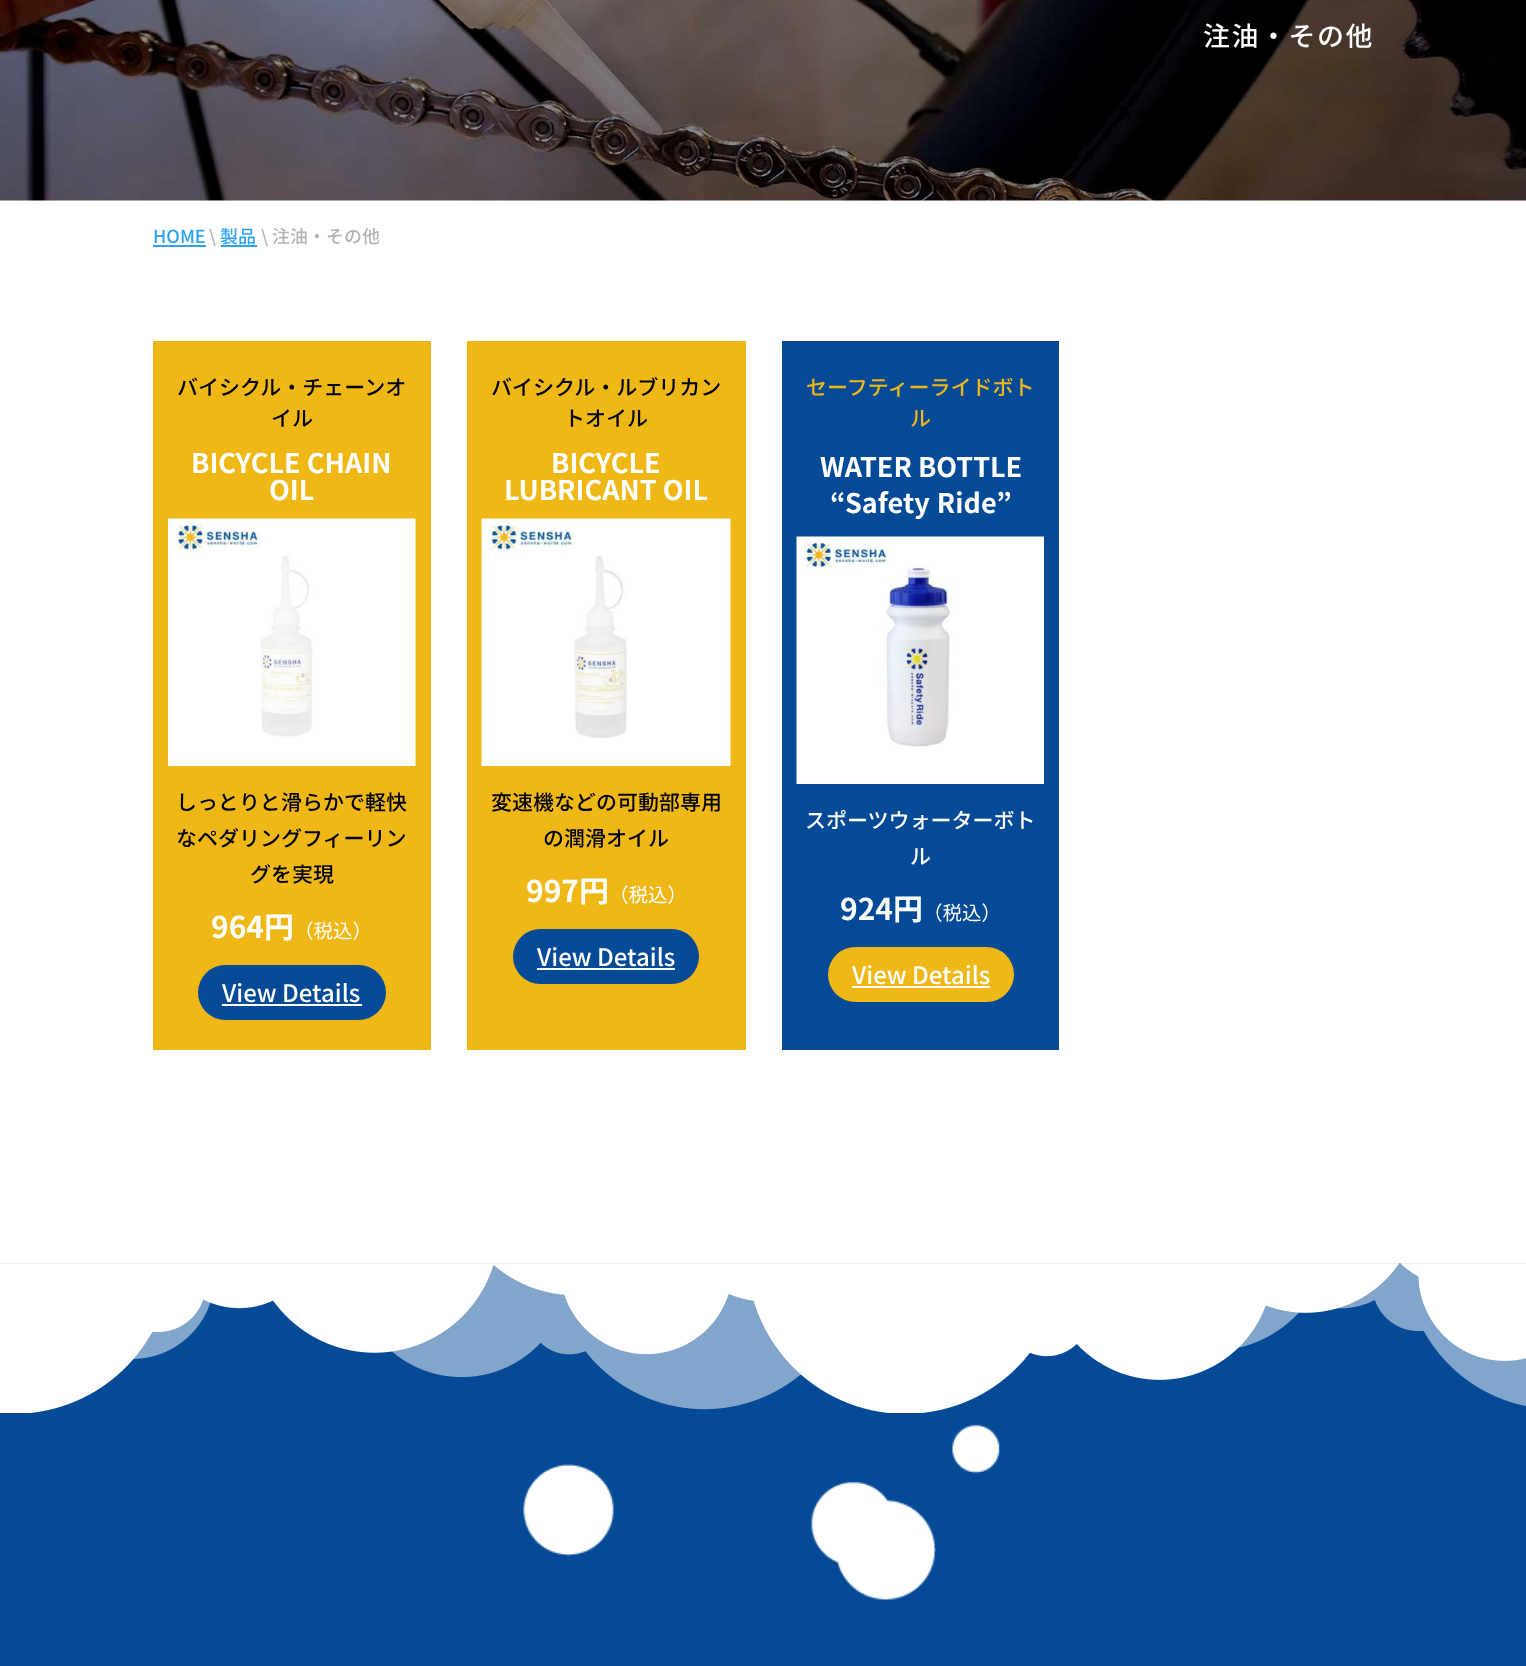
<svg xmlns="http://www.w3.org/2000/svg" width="1526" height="1666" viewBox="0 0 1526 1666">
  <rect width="100%" height="100%" fill="rgb(255,255,255)"/>
  <image x="0" y="0" width="1526" height="201" href="pic1.png"/>
  <text x="1203" y="46" font-family="Noto Sans JP" font-size="27" font-weight="500" letter-spacing="1.5" fill="rgb(255,255,255)">注油・その他</text>
  <text x="153" y="243" font-family="Noto Sans JP" font-size="18" font-weight="500" fill="rgb(46,163,242)">HOME</text>
  <rect x="153" y="245" width="53" height="2" fill="rgb(46,163,242)"/>
  <text x="209" y="243" font-family="Noto Sans JP" font-size="18" font-weight="500" fill="rgb(179,179,179)">\</text>
  <text x="220" y="243" font-family="Noto Sans JP" font-size="18" font-weight="500" fill="rgb(46,163,242)">製品</text>
  <rect x="221" y="245" width="36" height="2" fill="rgb(46,163,242)"/>
  <text x="261" y="243" font-family="Noto Sans JP" font-size="18" font-weight="500" fill="rgb(179,179,179)">\ 注油・その他</text>
  <rect x="153" y="341" width="278" height="709" fill="rgb(239,184,23)"/>
  <g font-family="Noto Sans JP" font-size="21" font-weight="500" fill="rgb(0,0,0)">
    <text x="177" y="395">バイシクル・チェーンオ</text>
    <text x="271" y="426">イル</text>
  </g>
  <g font-family="Noto Sans JP" font-size="27" font-weight="bold" fill="rgb(255,255,255)">
    <text x="191" y="473">BICYCLE CHAIN</text>
    <text x="269" y="500">OIL</text>
  </g>
  <image x="168" y="518" width="248" height="248" href="pic2.png"/>
  <g font-family="Noto Sans JP" font-size="21" font-weight="500" fill="rgb(0,0,0)">
    <text>
      <tspan x="176" y="810">しっとりと滑らかで軽快</tspan>
      <tspan x="176" y="846">なペダリングフィーリン</tspan>
    </text>
    <text x="250" y="882">グを実現</text>
  </g>
  <text x="211" y="938" font-family="Noto Sans JP" font-size="30" font-weight="bold" fill="rgb(255,255,255)">964円</text>
  <text x="294" y="938" font-family="Noto Sans JP" font-size="19.5" fill="rgb(255,255,255)">（税込）</text>
  <rect x="198" y="965" width="188" height="55" rx="27.5" fill="rgb(4,74,150)"/>
  <text x="222" y="1002" font-family="Noto Sans JP" font-size="24" font-weight="500" fill="rgb(255,255,255)">View Details</text>
  <rect x="222" y="1004" width="140" height="2" fill="rgb(255,255,255)"/>
  <rect x="467" y="341" width="279" height="709" fill="rgb(239,184,23)"/>
  <g font-family="Noto Sans JP" font-size="21" font-weight="500" fill="rgb(0,0,0)">
    <text x="491" y="395">バイシクル・ルブリカン</text>
    <text x="564" y="426">トオイル</text>
  </g>
  <g font-family="Noto Sans JP" font-size="27" font-weight="bold" fill="rgb(255,255,255)">
    <text x="551" y="473">BICYCLE</text>
    <text x="504" y="500">LUBRICANT OIL</text>
  </g>
  <image x="481" y="518" width="250" height="248" href="pic3.png"/>
  <g font-family="Noto Sans JP" font-size="21" font-weight="500" fill="rgb(0,0,0)">
    <text x="491" y="810">変速機などの可動部専用</text>
    <text x="543" y="846">の潤滑オイル</text>
  </g>
  <text x="526" y="902" font-family="Noto Sans JP" font-size="30" font-weight="bold" fill="rgb(255,255,255)">997円</text>
  <text x="609" y="902" font-family="Noto Sans JP" font-size="19.5" fill="rgb(255,255,255)">（税込）</text>
  <rect x="513" y="929" width="186" height="55" rx="27.5" fill="rgb(4,74,150)"/>
  <text x="537" y="966" font-family="Noto Sans JP" font-size="24" font-weight="500" fill="rgb(255,255,255)">View Details</text>
  <rect x="537" y="968" width="138" height="2" fill="rgb(255,255,255)"/>
  <rect x="782" y="341" width="277" height="709" fill="rgb(4,74,150)"/>
  <g font-family="Noto Sans JP" font-size="21" font-weight="500" fill="rgb(239,184,23)">
    <text x="806" y="395">セーフティーライドボト</text>
    <text x="910" y="426">ル</text>
  </g>
  <g font-family="Noto Sans JP" font-size="27" font-weight="bold" fill="rgb(255,255,255)">
    <text x="820" y="477">WATER BOTTLE</text>
    <text x="830" y="513" word-spacing="1">“Safety Ride”</text>
  </g>
  <image x="796" y="536" width="248" height="248" href="pic4.png"/>
  <g font-family="Noto Sans JP" font-size="21" font-weight="500" fill="rgb(255,255,255)">
    <text x="805" y="828">スポーツウォーターボト</text>
    <text x="910" y="864">ル</text>
  </g>
  <text x="840" y="920" font-family="Noto Sans JP" font-size="30" font-weight="bold" fill="rgb(255,255,255)">924円</text>
  <text x="923" y="920" font-family="Noto Sans JP" font-size="19.5" fill="rgb(255,255,255)">（税込）</text>
  <rect x="828" y="947" width="186" height="55" rx="27.5" fill="rgb(239,184,23)"/>
  <text x="852" y="984" font-family="Noto Sans JP" font-size="24" font-weight="500" fill="rgb(255,255,255)">View Details</text>
  <rect x="852" y="986" width="138" height="2" fill="rgb(255,255,255)"/>
  <rect x="0" y="1263" width="1526" height="403" fill="rgb(4,74,150)"/>
  <image x="0" y="1263" width="1526" height="150" href="pic5.png"/>
  <image x="523" y="1424" width="477" height="176" href="pic6.png"/>
</svg>
